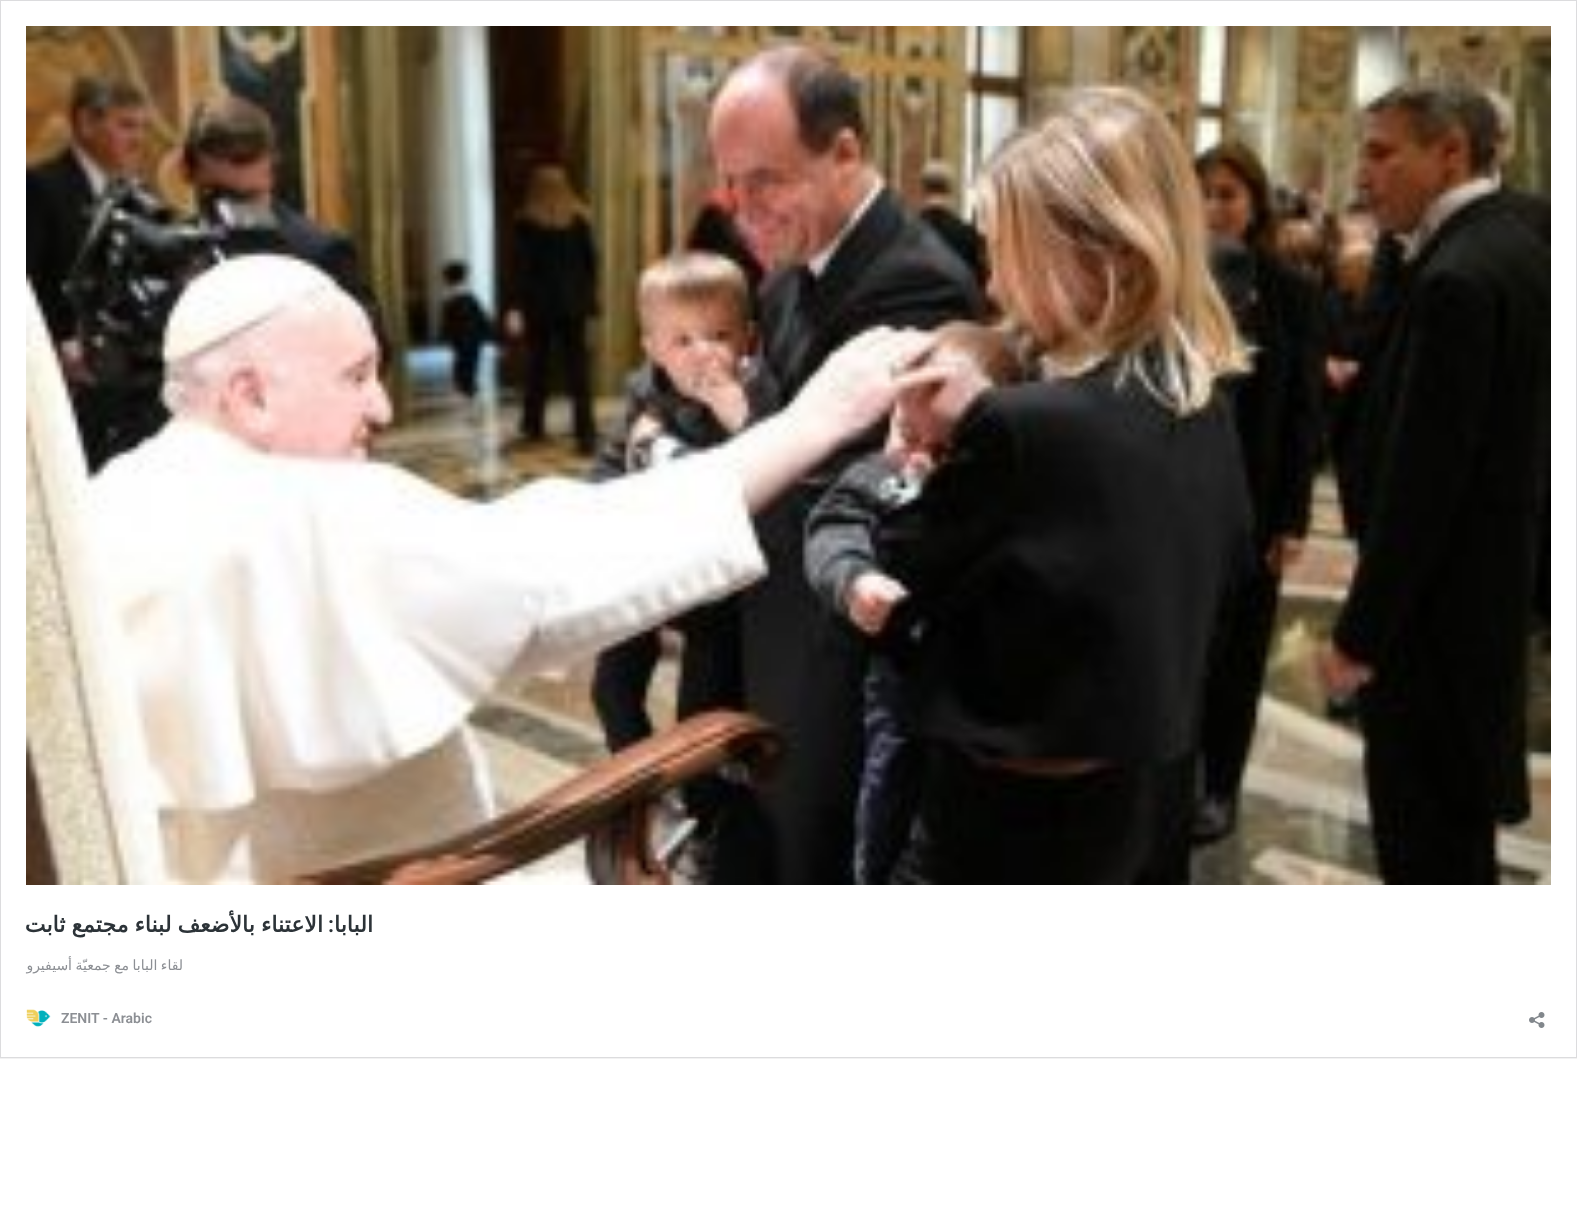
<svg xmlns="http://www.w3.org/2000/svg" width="1577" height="1211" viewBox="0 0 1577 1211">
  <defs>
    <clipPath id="clip1"><rect x="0" y="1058" width="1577" height="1"/></clipPath>
  </defs>
  <rect width="100%" height="100%" fill="rgb(255,255,255)"/>
  <g clip-path="url(#clip1)">
    <rect x="0" y="1" width="1577" height="1058" fill="rgba(0,0,0,0.05)" filter="blur(0.5px)"/>
  </g>
  <rect x="0.5" y="0.5" width="1576" height="1057" fill="none" stroke="rgb(220,220,222)"/>
  <image x="26" y="26" width="1525" height="859" href="pic1.png"/>
  <text x="373" y="932" font-family="DejaVu Sans" font-size="22" font-weight="bold" direction="rtl" fill="rgb(44,51,56)">البابا</text>
  <text x="334" y="932" font-family="Roboto" font-size="22" font-weight="600" direction="rtl" fill="rgb(44,51,56)">:</text>
  <text x="323" y="932" word-spacing="-1" font-family="DejaVu Sans" font-size="22" font-weight="bold" direction="rtl" fill="rgb(44,51,56)">الاعتناء بالأضعف لبناء مجتمع ثابت</text>
  <text x="183" y="970" word-spacing="-1" font-family="DejaVu Sans" font-size="14" direction="rtl" fill="rgb(140,143,148)">لقاء البابا مع جمعيّة أسيفيرو</text>
  <image x="1529" y="1012" width="16" height="16" href="pic2.png"/>
  <text x="61" y="1023" font-family="Roboto" font-size="14" font-weight="600" fill="rgb(140,143,148)">ZENIT - Arabic</text>
  <image x="26" y="1009" width="25" height="18" href="pic3.png"/>
</svg>
